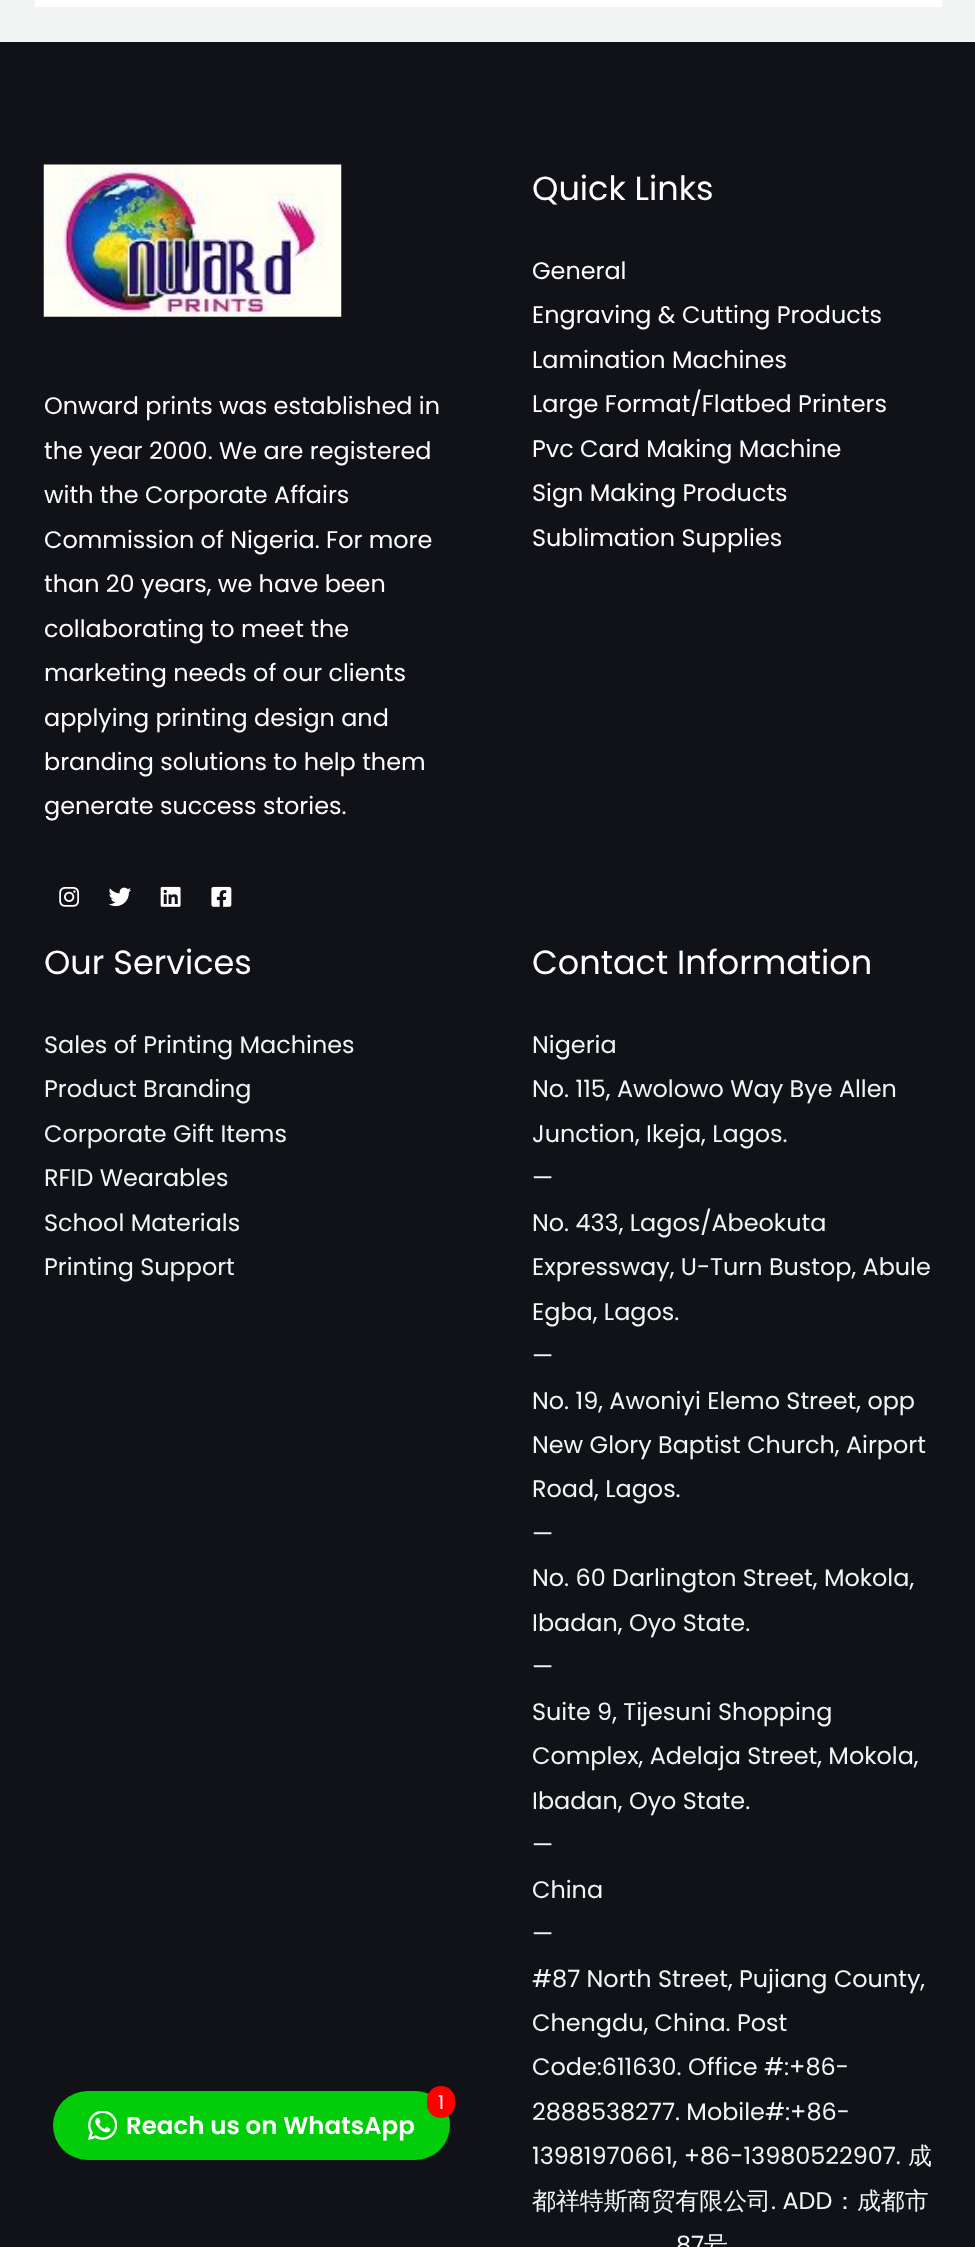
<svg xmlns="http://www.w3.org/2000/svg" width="975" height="2247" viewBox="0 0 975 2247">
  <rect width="100%" height="100%" fill="rgb(243,245,245)"/>
  <rect x="35" y="0" width="907" height="7" fill="rgb(255,255,255)"/>
  <rect x="0" y="42" width="975" height="2205" fill="rgb(16,18,24)"/>
  <image x="43" y="164" width="299" height="153" href="pic1.png"/>
  <g font-family="Poppins" font-size="23.9" fill="rgb(255,255,255)">
    <text>
      <tspan x="44" y="414">Onward prints was established in</tspan>
      <tspan x="44" y="459">the year 2000. We are registered</tspan>
      <tspan x="44" y="503">with the Corporate Affairs</tspan>
      <tspan x="44" y="548">Commission of Nigeria. For more</tspan>
      <tspan x="44" y="592">than 20 years, we have been</tspan>
      <tspan x="44" y="637">collaborating to meet the</tspan>
      <tspan x="44" y="681">marketing needs of our clients</tspan>
      <tspan x="44" y="726">applying printing design and</tspan>
      <tspan x="44" y="770">branding solutions to help them</tspan>
      <tspan x="44" y="814">generate success stories.</tspan>
    </text>
  </g>
  <image x="59" y="887" width="20" height="20" href="pic2.png"/>
  <image x="109" y="887" width="22" height="20" href="pic3.png"/>
  <image x="160" y="886" width="21" height="21" href="pic4.png"/>
  <image x="211" y="886" width="21" height="21" href="pic5.png"/>
  <text x="532" y="200" font-family="Poppins" font-size="33.5" fill="rgb(255,255,255)">Quick Links</text>
  <g font-family="Poppins" font-size="23.9" fill="rgb(255,255,255)">
    <text>
      <tspan x="532" y="279">General</tspan>
      <tspan x="532" y="323">Engraving &amp; Cutting Products</tspan>
      <tspan x="532" y="368">Lamination Machines</tspan>
      <tspan x="532" y="412">Large Format/Flatbed Printers</tspan>
      <tspan x="532" y="457">Pvc Card Making Machine</tspan>
      <tspan x="532" y="501">Sign Making Products</tspan>
      <tspan x="532" y="546">Sublimation Supplies</tspan>
    </text>
  </g>
  <text x="44" y="974" font-family="Poppins" font-size="33.5" fill="rgb(255,255,255)">Our Services</text>
  <g font-family="Poppins" font-size="23.9" fill="rgb(243,245,245)">
    <text>
      <tspan x="44" y="1053">Sales of Printing Machines</tspan>
      <tspan x="44" y="1097">Product Branding</tspan>
      <tspan x="44" y="1142">Corporate Gift Items</tspan>
      <tspan x="44" y="1186">RFID Wearables</tspan>
      <tspan x="44" y="1231">School Materials</tspan>
      <tspan x="44" y="1275">Printing Support</tspan>
    </text>
  </g>
  <text x="532" y="974" font-family="Poppins" font-size="33.5" fill="rgb(255,255,255)">Contact Information</text>
  <g font-family="Poppins" font-size="23.9" fill="rgb(243,245,245)">
    <text>
      <tspan x="532" y="1053">Nigeria</tspan>
      <tspan x="532" y="1097">No. 115, Awolowo Way Bye Allen</tspan>
      <tspan x="532" y="1142">Junction, Ikeja, Lagos.</tspan>
      <tspan x="532" y="1186">—</tspan>
      <tspan x="532" y="1231">No. 433, Lagos/Abeokuta</tspan>
      <tspan x="532" y="1275">Expressway, U-Turn Bustop, Abule</tspan>
      <tspan x="532" y="1320">Egba, Lagos.</tspan>
      <tspan x="532" y="1364">—</tspan>
      <tspan x="532" y="1409">No. 19, Awoniyi Elemo Street, opp</tspan>
      <tspan x="532" y="1453">New Glory Baptist Church, Airport</tspan>
      <tspan x="532" y="1497">Road, Lagos.</tspan>
      <tspan x="532" y="1542">—</tspan>
      <tspan x="532" y="1586">No. 60 Darlington Street, Mokola,</tspan>
      <tspan x="532" y="1631">Ibadan, Oyo State.</tspan>
      <tspan x="532" y="1675">—</tspan>
      <tspan x="532" y="1720">Suite 9, Tijesuni Shopping</tspan>
      <tspan x="532" y="1764">Complex, Adelaja Street, Mokola,</tspan>
      <tspan x="532" y="1809">Ibadan, Oyo State.</tspan>
      <tspan x="532" y="1853">—</tspan>
      <tspan x="532" y="1898">China</tspan>
      <tspan x="532" y="1942">—</tspan>
      <tspan x="532" y="1987">#87 North Street, Pujiang County,</tspan>
      <tspan x="532" y="2031">Chengdu, China. Post</tspan>
      <tspan x="532" y="2075">Code:611630. Office #:+86-</tspan>
      <tspan x="532" y="2120">2888538277. Mobile#:+86-</tspan>
      <tspan x="532" y="2164">13981970661, +86-13980522907.</tspan>
    </text>
  </g>
  <g font-family="WenQuanYi Zen Hei" font-size="23.9" font-weight="500" fill="rgb(243,245,245)">
    <text x="908" y="2164">成</text>
    <text x="532" y="2209">都祥特斯商贸有限公司</text>
  </g>
  <text x="771" y="2209" font-family="Poppins" font-size="23.9" fill="rgb(243,245,245)">. ADD</text>
  <text x="833" y="2209" font-family="WenQuanYi Zen Hei" font-size="23.9" font-weight="500" fill="rgb(243,245,245)">：成都市</text>
  <text x="676" y="2253" font-family="Poppins" font-size="23.9" fill="rgb(243,245,245)">87</text>
  <text x="704" y="2253" font-family="WenQuanYi Zen Hei" font-size="23.9" font-weight="500" fill="rgb(243,245,245)">号</text>
  <rect x="53" y="2091" width="397" height="69" rx="34.5" fill="rgb(3,204,11)"/>
  <rect x="427" y="2086" width="28" height="32" rx="14" fill="rgb(255,0,0)"/>
  <text x="438" y="2109" font-family="Poppins" font-size="19" fill="rgb(255,255,255)">1</text>
  <image x="88" y="2111" width="29" height="29" href="pic6.png"/>
  <text x="126" y="2134" font-family="Poppins" font-size="24.5" font-weight="600" fill="rgb(255,255,255)">Reach us on WhatsApp</text>
</svg>
